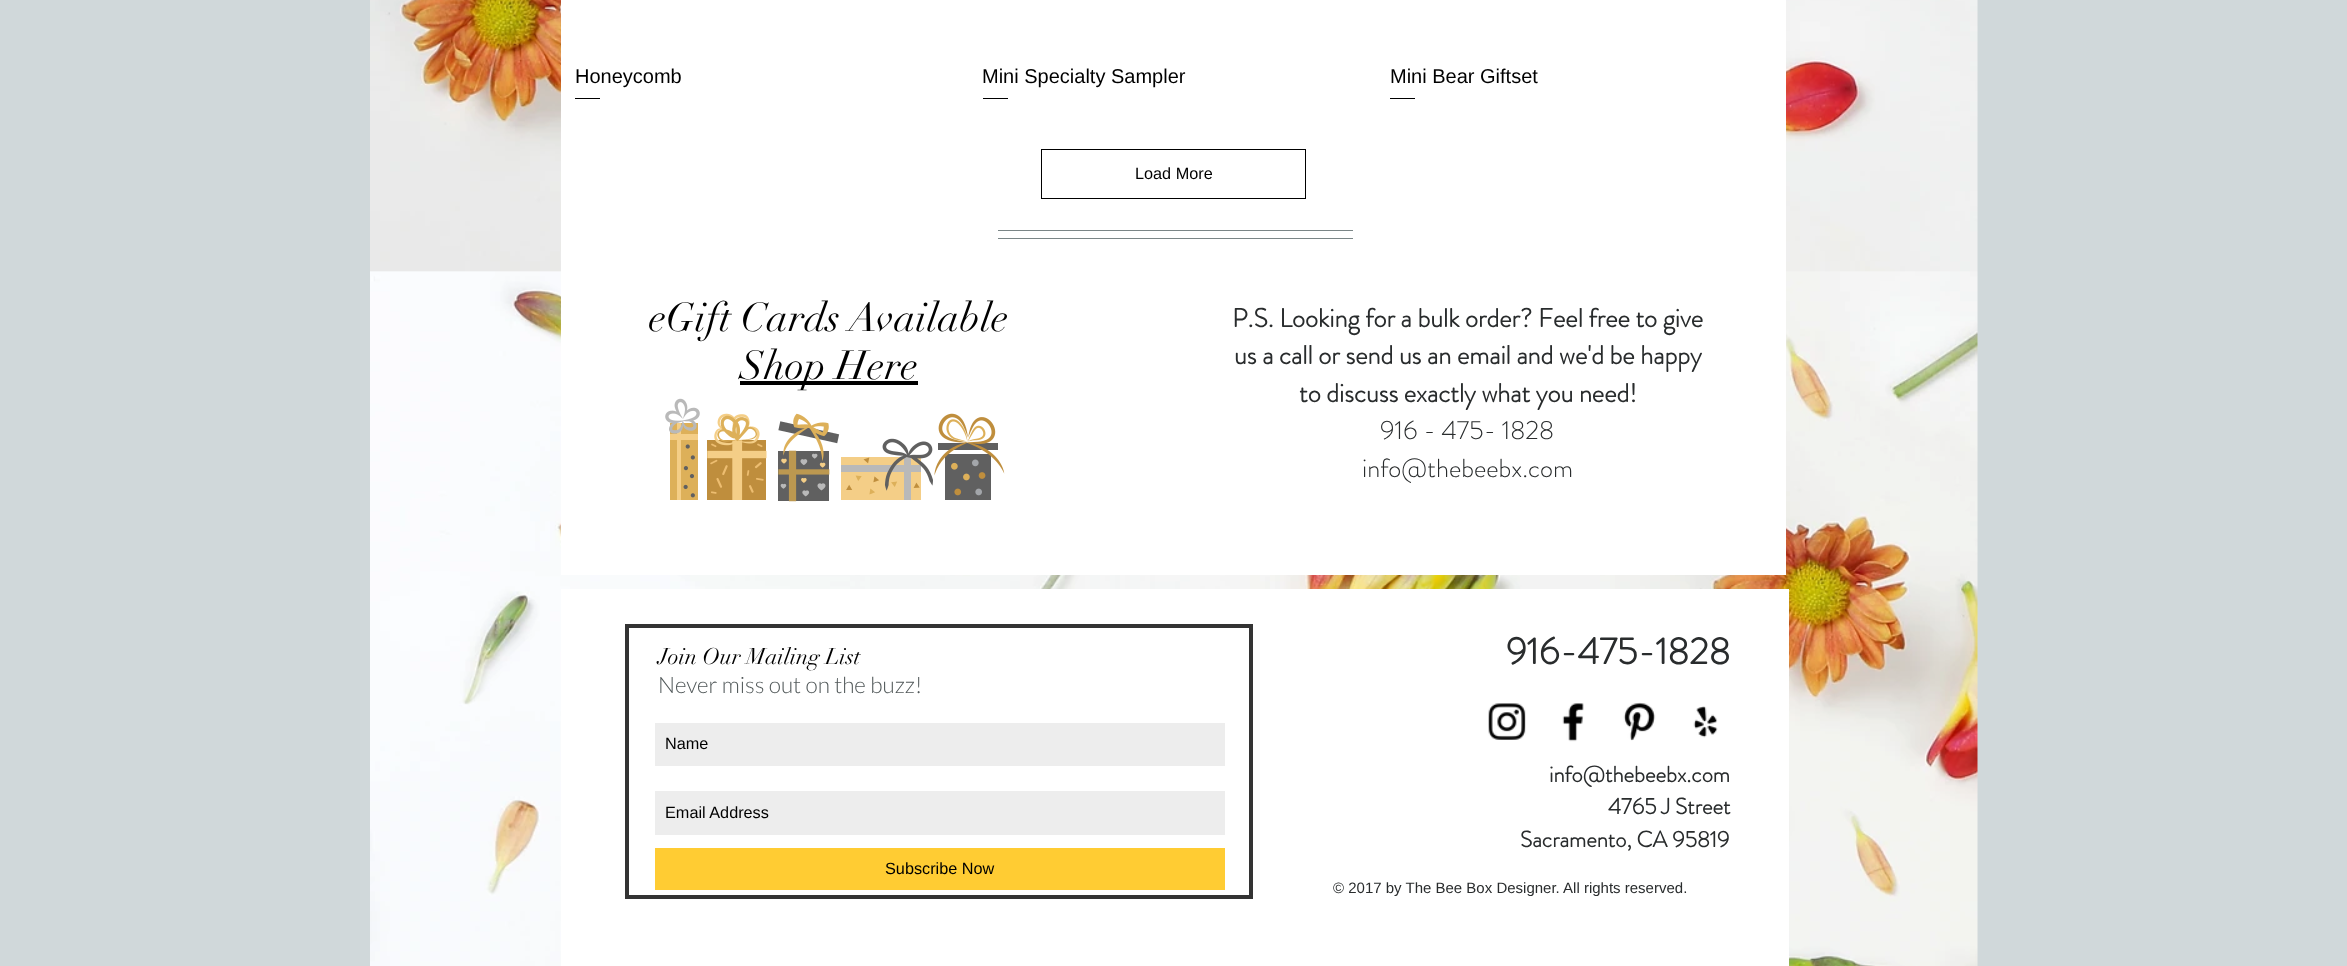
<svg xmlns="http://www.w3.org/2000/svg" width="2347" height="966" viewBox="0 0 2347 966">
  <rect width="100%" height="100%" fill="rgb(208,216,218)"/>
  <image x="370" y="0" width="1608" height="966" href="pic1.png"/>
  <rect x="561" y="0" width="1225" height="575" fill="rgb(255,255,255)"/>
  <text x="575" y="83" font-family="Liberation Sans" font-size="20" fill="rgb(0,0,0)">Honeycomb</text>
  <rect x="575" y="98" width="25" height="1" fill="rgb(0,0,0)"/>
  <text x="982" y="83" font-family="Liberation Sans" font-size="20" fill="rgb(0,0,0)">Mini Specialty Sampler</text>
  <rect x="983" y="98" width="25" height="1" fill="rgb(0,0,0)"/>
  <text x="1390" y="83" font-family="Liberation Sans" font-size="20" fill="rgb(0,0,0)">Mini Bear Giftset</text>
  <rect x="1390" y="98" width="25" height="1" fill="rgb(0,0,0)"/>
  <rect x="1041.5" y="149.5" width="264" height="49" fill="none" stroke="rgb(0,0,0)"/>
  <text x="1135" y="179" font-family="Liberation Sans" font-size="16.25" fill="rgb(0,0,0)">Load More</text>
  <rect x="998" y="230" width="355" height="1" fill="rgb(123,134,135)"/>
  <rect x="998" y="238" width="355" height="1" fill="rgb(123,134,135)"/>
  <text x="649" y="331" font-family="didot" font-size="40" fill="rgb(0,0,0)">eGift Cards Available</text>
  <rect x="740" y="381" width="178" height="4" fill="rgb(0,0,0)"/>
  <text x="740" y="379" font-family="didot" font-size="40" fill="rgb(0,0,0)">Shop Here</text>
  <image x="665" y="398" width="35" height="102" href="pic2.png"/>
  <image x="707" y="413" width="60" height="87" href="pic3.png"/>
  <image x="778" y="413" width="62" height="89" href="pic4.png"/>
  <image x="841" y="438" width="92" height="62" href="pic5.png"/>
  <image x="934" y="413" width="71" height="87" href="pic6.png"/>
  <g font-family="'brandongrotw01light'" font-size="26.25" font-weight="bold" fill="rgb(41,44,45)">
    <text x="1232" y="327">P.S. Looking for a bulk order? Feel free to give</text>
    <text x="1234" y="364">us a call or send us an email and we'd be happy</text>
    <text x="1299" y="402">to discuss exactly what you need!</text>
  </g>
  <g font-family="'brandongrotw01light'" font-size="26.25" font-weight="300" fill="rgb(41,44,45)">
    <text x="1380" y="439">916 - 475- 1828</text>
    <text x="1362" y="477">info@thebeebx.com</text>
  </g>
  <rect x="561" y="589" width="1228" height="377" fill="rgb(255,255,255)"/>
  <rect x="627" y="626" width="624" height="271" fill="none" stroke="rgb(51,51,51)" stroke-width="4"/>
  <text x="658" y="664" font-family="didot" font-size="22.5" fill="rgb(0,0,0)">Join Our Mailing List</text>
  <text x="658" y="693" font-family="Lato" font-size="22.5" font-weight="300" fill="rgb(82,89,90)">Never miss out on the buzz!</text>
  <rect x="655" y="723" width="570" height="43" fill="rgb(237,237,237)"/>
  <text x="665" y="749" font-family="Liberation Sans" font-size="16.25" fill="rgb(0,0,0)">Name</text>
  <rect x="655" y="791" width="570" height="44" fill="rgb(237,237,237)"/>
  <text x="665" y="818" font-family="Liberation Sans" font-size="16.25" fill="rgb(0,0,0)">Email Address</text>
  <rect x="655" y="848" width="570" height="42" fill="rgb(255,204,51)"/>
  <text x="885" y="874" font-family="Liberation Sans" font-size="16.25" fill="rgb(0,0,0)">Subscribe Now</text>
  <text x="1506" y="664" font-family="'brandongrotw01light'" font-size="37.5" font-weight="bold" fill="rgb(41,44,45)">916-475-1828</text>
  <image x="1488" y="703" width="38" height="37" href="pic7.png"/>
  <image x="1562" y="703" width="22" height="39" href="pic8.png"/>
  <image x="1623" y="702" width="33" height="39" href="pic9.png"/>
  <image x="1693" y="706" width="25" height="32" href="pic10.png"/>
  <g font-family="'brandongrotw01light'" font-size="22.5" font-weight="bold" fill="rgb(41,44,45)">
    <text x="1549" y="782">info@thebeebx.com</text>
    <text x="1608" y="814">4765 J Street</text>
    <text x="1520" y="847">Sacramento, CA 95819</text>
  </g>
  <text x="1333" y="893" font-family="Liberation Sans" font-size="15" fill="rgb(41,44,45)">© 2017 by The Bee Box Designer. All rights reserved.</text>
</svg>
